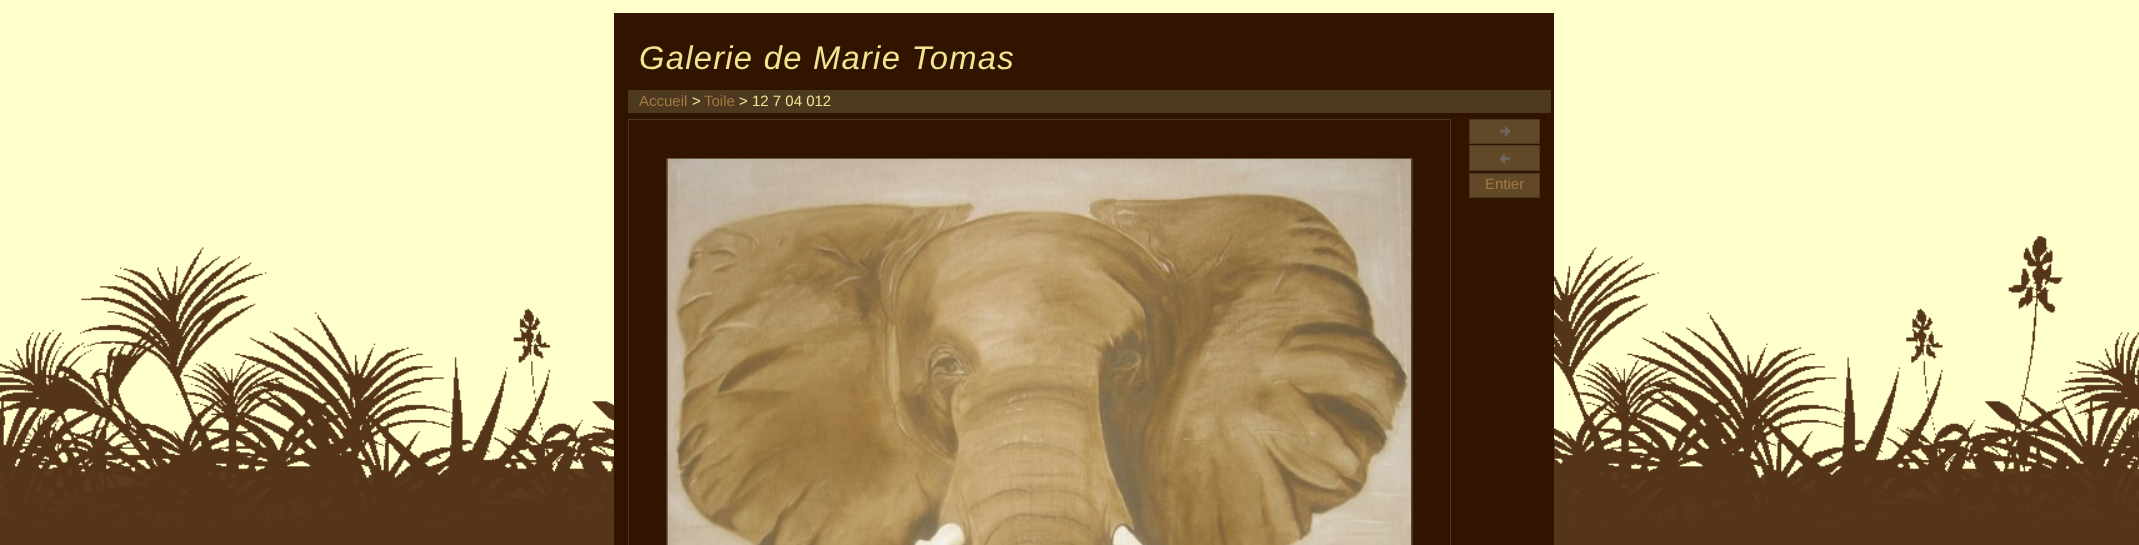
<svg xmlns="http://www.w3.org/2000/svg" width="2139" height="545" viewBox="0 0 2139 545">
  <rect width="100%" height="100%" fill="rgb(255,255,204)"/>
  <image x="0" y="236" width="2139" height="309" href="pic1.png"/>
  <rect x="614" y="13" width="940" height="532" fill="rgb(49,20,0)"/>
  <text x="639" y="69" font-family="Liberation Sans" font-size="32.75" font-style="italic" letter-spacing="1.25" fill="rgb(242,229,144)">Galerie de Marie Tomas</text>
  <rect x="628" y="90" width="923" height="23" fill="rgb(77,57,31)"/>
  <text x="639" y="106" font-family="Liberation Sans" font-size="15" fill="rgb(164,121,64)">Accueil</text>
  <text x="692" y="106" font-family="Liberation Sans" font-size="15" fill="rgb(242,229,144)">&gt;</text>
  <text x="704" y="106" font-family="Liberation Sans" font-size="15" fill="rgb(164,121,64)">Toile</text>
  <text x="739" y="106" font-family="Liberation Sans" font-size="15" fill="rgb(242,229,144)">&gt; 12 7 04 012</text>
  <rect x="628.5" y="119.5" width="822" height="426" fill="none" stroke="rgb(77,57,31)"/>
  <rect x="666.5" y="158.5" width="746" height="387" fill="none" stroke="rgb(77,57,31)"/>
  <image x="667" y="158" width="745" height="387" href="pic2.png"/>
  <rect x="1470" y="120" width="69" height="23" fill="rgb(97,72,40)"/>
  <image x="1500" y="126" width="11" height="11" href="pic3.png"/>
  <rect x="1469.5" y="119.5" width="70" height="24" fill="none" stroke="rgb(77,57,31)"/>
  <rect x="1470" y="146" width="69" height="24" fill="rgb(97,72,40)"/>
  <image x="1500" y="153" width="11" height="11" href="pic4.png"/>
  <rect x="1469.5" y="145.5" width="70" height="25" fill="none" stroke="rgb(77,57,31)"/>
  <rect x="1469.5" y="173.5" width="70" height="24" fill="rgb(97,72,40)" stroke="rgb(77,57,31)"/>
  <text x="1485" y="189" font-family="Liberation Sans" font-size="15" fill="rgb(164,121,64)">Entier</text>
</svg>
